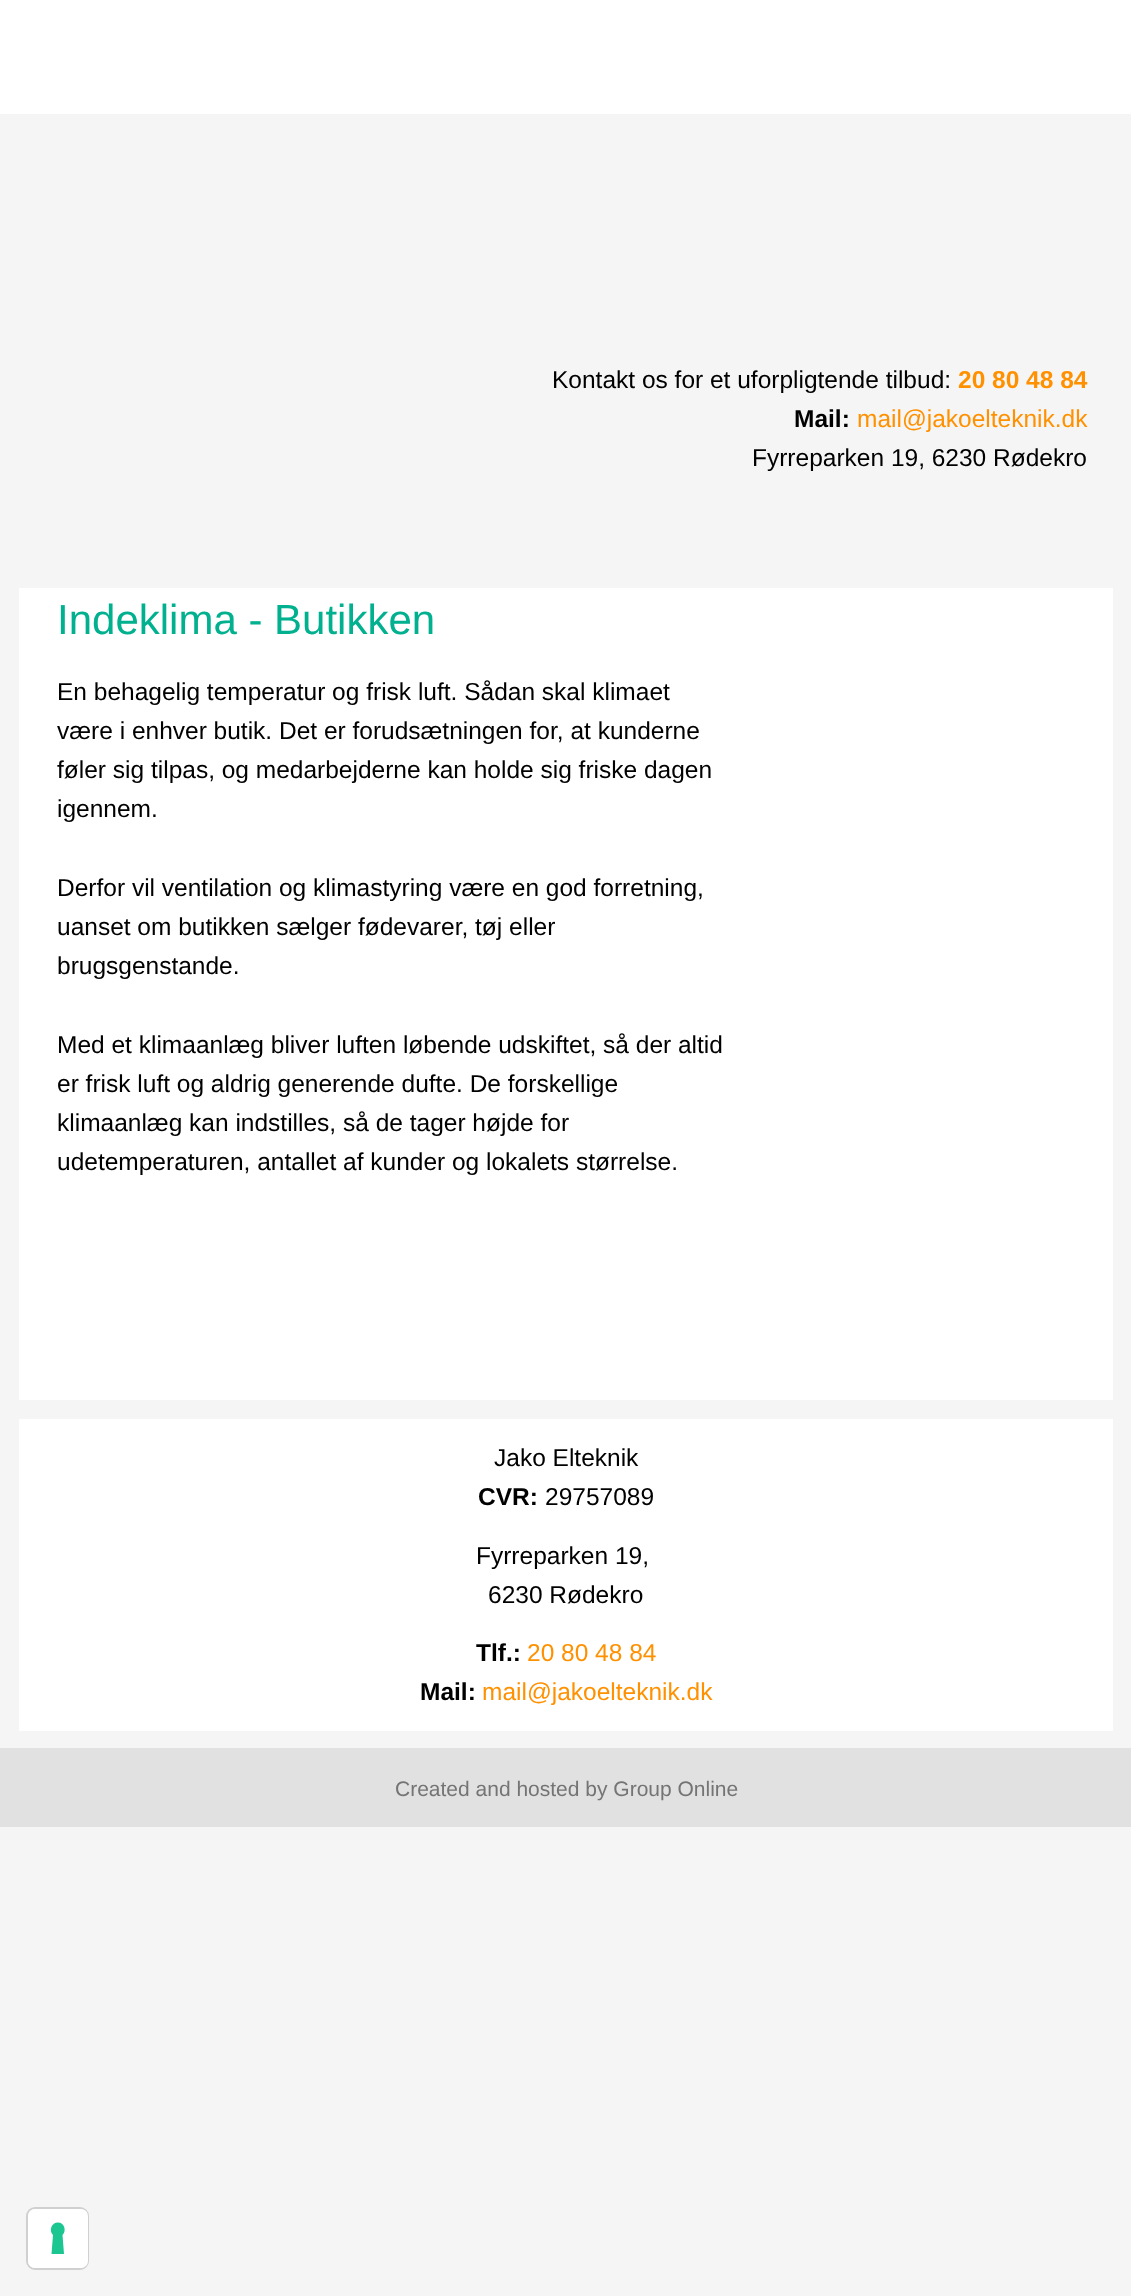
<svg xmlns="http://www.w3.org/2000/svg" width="1131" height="2296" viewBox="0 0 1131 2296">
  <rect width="100%" height="100%" fill="rgb(255,255,255)"/>
  <rect x="0" y="114" width="1131" height="2182" fill="rgb(245,245,245)"/>
  <text x="552" y="388" font-family="Liberation Sans" font-size="24.5" fill="rgb(0,0,0)">Kontakt os for et uforpligtende tilbud:</text>
  <text x="958" y="388" font-family="Liberation Sans" font-size="24.5" font-weight="bold" fill="rgb(255,145,0)">20 80 48 84</text>
  <text x="794" y="427" font-family="Liberation Sans" font-size="24.5" font-weight="bold" fill="rgb(0,0,0)">Mail:</text>
  <text x="857" y="427" font-family="Liberation Sans" font-size="24.5" fill="rgb(255,145,0)">mail@jakoelteknik.dk</text>
  <text x="752" y="466" font-family="Liberation Sans" font-size="24.5" fill="rgb(0,0,0)">Fyrreparken 19, 6230 Rødekro</text>
  <rect x="19" y="588" width="1094" height="812" fill="rgb(255,255,255)"/>
  <text x="57" y="634" font-family="Liberation Sans" font-size="42" fill="rgb(0,176,143)">Indeklima - Butikken</text>
  <g font-family="Liberation Sans" font-size="24.5" fill="rgb(0,0,0)">
    <text>
      <tspan x="57" y="700">En behagelig temperatur og frisk luft. Sådan skal klimaet</tspan>
      <tspan x="57" y="739">være i enhver butik. Det er forudsætningen for, at kunderne</tspan>
      <tspan x="57" y="778">føler sig tilpas, og medarbejderne kan holde sig friske dagen</tspan>
      <tspan x="57" y="817">igennem.</tspan>
    </text>
    <text>
      <tspan x="57" y="896">Derfor vil ventilation og klimastyring være en god forretning,</tspan>
      <tspan x="57" y="935">uanset om butikken sælger fødevarer, tøj eller</tspan>
      <tspan x="57" y="974">brugsgenstande.</tspan>
    </text>
    <text>
      <tspan x="57" y="1053">Med et klimaanlæg bliver luften løbende udskiftet, så der altid</tspan>
      <tspan x="57" y="1092">er frisk luft og aldrig generende dufte. De forskellige</tspan>
      <tspan x="57" y="1131">klimaanlæg kan indstilles, så de tager højde for</tspan>
      <tspan x="57" y="1170">udetemperaturen, antallet af kunder og lokalets størrelse.</tspan>
    </text>
  </g>
  <rect x="19" y="1419" width="1094" height="312" fill="rgb(255,255,255)"/>
  <text x="494" y="1466" font-family="Liberation Sans" font-size="24.5" fill="rgb(0,0,0)">Jako Elteknik</text>
  <text x="478" y="1505" font-family="Liberation Sans" font-size="24.5" font-weight="bold" fill="rgb(0,0,0)">CVR:</text>
  <g font-family="Liberation Sans" font-size="24.5" fill="rgb(0,0,0)">
    <text x="545" y="1505">29757089</text>
    <text x="476" y="1564">Fyrreparken 19,</text>
    <text x="488" y="1603">6230 Rødekro</text>
  </g>
  <text x="476" y="1661" font-family="Liberation Sans" font-size="24.5" font-weight="bold" fill="rgb(0,0,0)">Tlf.:</text>
  <text x="527" y="1661" font-family="Liberation Sans" font-size="24.5" fill="rgb(255,145,0)">20 80 48 84</text>
  <text x="420" y="1700" font-family="Liberation Sans" font-size="24.5" font-weight="bold" fill="rgb(0,0,0)">Mail:</text>
  <text x="482" y="1700" font-family="Liberation Sans" font-size="24.5" fill="rgb(255,145,0)">mail@jakoelteknik.dk</text>
  <rect x="0" y="1748" width="1131" height="79" fill="rgb(225,225,225)"/>
  <text x="395" y="1796" font-family="Liberation Sans" font-size="21" fill="rgb(116,116,116)">Created and hosted by Group Online</text>
  <rect x="27" y="2208" width="61" height="61" rx="8" fill="none" stroke="rgb(208,208,208)" stroke-width="2"/>
  <rect x="28" y="2209" width="60" height="59" rx="7" fill="rgb(255,255,255)"/>
  <path d="M58 2222.5C64 2222.5 67 2230.5 62.5 2235L64 2254H51.5L53 2235C48.5 2230.5 51.5 2222.5 58 2222.5Z" fill="rgb(28,198,145)" fill-rule="evenodd"/>
</svg>
